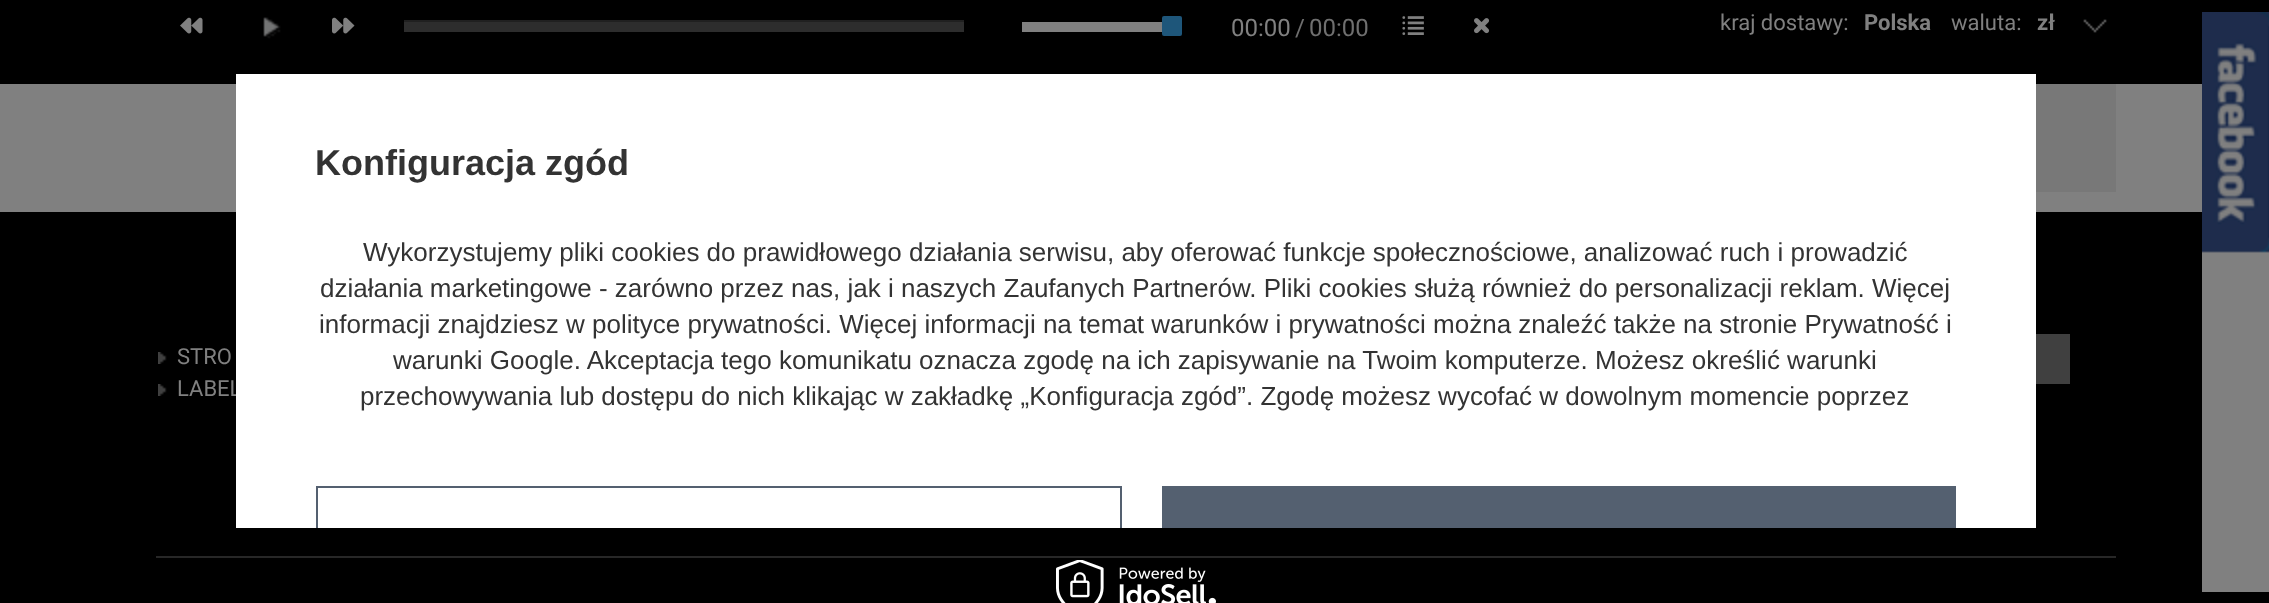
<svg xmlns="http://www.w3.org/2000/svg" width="2269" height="603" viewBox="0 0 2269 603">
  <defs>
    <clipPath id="clip1"><rect x="236" y="74" width="1800" height="454"/></clipPath>
  </defs>
  <rect width="100%" height="100%" fill="rgb(0,0,0)"/>
  <rect x="0" y="84" width="2202" height="128" fill="rgb(128,128,128)"/>
  <image x="180" y="17" width="23" height="17" href="pic1.png"/>
  <image x="263" y="17" width="18" height="22" href="pic2.png"/>
  <image x="332" y="17" width="23" height="17" href="pic3.png"/>
  <rect x="404" y="22" width="560" height="10" fill="rgb(45,45,45)"/>
  <rect x="404" y="20" width="560" height="2" fill="rgb(32,32,32)"/>
  <rect x="1022" y="22" width="140" height="10" fill="rgb(128,128,128)"/>
  <rect x="1162" y="16" width="20" height="20" rx="2" fill="rgb(30,86,122)"/>
  <text x="1231" y="36" font-family="Roboto" font-size="24" fill="rgb(128,128,128)">00:00</text>
  <g font-family="Roboto" font-size="24" fill="rgb(111,111,111)">
    <text x="1295" y="36">/</text>
    <text x="1309" y="36">00:00</text>
  </g>
  <image x="1402" y="16" width="22" height="19" href="pic4.png"/>
  <image x="1474" y="18" width="16" height="16" href="pic5.png"/>
  <text x="1720" y="30" font-family="Roboto" font-size="22" fill="rgb(128,128,128)">kraj dostawy:</text>
  <text x="1864" y="30" font-family="Roboto" font-size="22" font-weight="bold" fill="rgb(128,128,128)">Polska</text>
  <text x="1951" y="30" font-family="Roboto" font-size="22" fill="rgb(128,128,128)">waluta:</text>
  <text x="2037" y="30" font-family="Roboto" font-size="22" font-weight="bold" fill="rgb(128,128,128)">zł</text>
  <image x="2083" y="19" width="24" height="14" href="pic6.png"/>
  <rect x="2036" y="84" width="80" height="108" fill="rgb(120,120,120)"/>
  <image x="2202" y="12" width="67" height="580" href="pic7.png"/>
  <image x="158" y="352" width="9" height="12" href="pic8.png"/>
  <text x="177" y="364" font-family="Roboto" font-size="22" fill="rgb(128,128,128)">STRO</text>
  <image x="158" y="384" width="9" height="12" href="pic8.png"/>
  <text x="177" y="396" font-family="Roboto" font-size="22" fill="rgb(128,128,128)">LABEL</text>
  <rect x="2036" y="334" width="34" height="50" fill="rgb(64,64,64)"/>
  <rect x="156" y="556" width="1960" height="2" fill="rgb(39,39,39)"/>
  <rect x="236" y="74" width="1800" height="454" fill="rgb(255,255,255)"/>
  <text x="315" y="175" font-family="Liberation Sans" font-size="36" font-weight="bold" fill="rgb(51,51,51)">Konfiguracja zgód</text>
  <g font-family="Liberation Sans" font-size="26" fill="rgb(51,51,51)">
    <text x="363" y="261">Wykorzystujemy pliki cookies do prawidłowego działania serwisu, aby oferować funkcje społecznościowe, analizować ruch i prowadzić</text>
    <text x="320" y="297">działania marketingowe - zarówno przez nas, jak i naszych Zaufanych Partnerów. Pliki cookies służą również do personalizacji reklam. Więcej</text>
    <text x="319" y="333">informacji znajdziesz w polityce prywatności. Więcej informacji na temat warunków i prywatności można znaleźć także na stronie Prywatność i</text>
    <text x="393" y="369">warunki Google. Akceptacja tego komunikatu oznacza zgodę na ich zapisywanie na Twoim komputerze. Możesz określić warunki</text>
    <text x="360" y="405">przechowywania lub dostępu do nich klikając w zakładkę „Konfiguracja zgód”. Zgodę możesz wycofać w dowolnym momencie poprzez</text>
  </g>
  <g clip-path="url(#clip1)">
    <rect x="317" y="487" width="804" height="88" fill="none" stroke="rgb(84,96,112)" stroke-width="2"/>
  </g>
  <rect x="1162" y="486" width="794" height="42" fill="rgb(84,96,112)"/>
  <image x="1056" y="560" width="160" height="43" href="pic9.png"/>
</svg>
